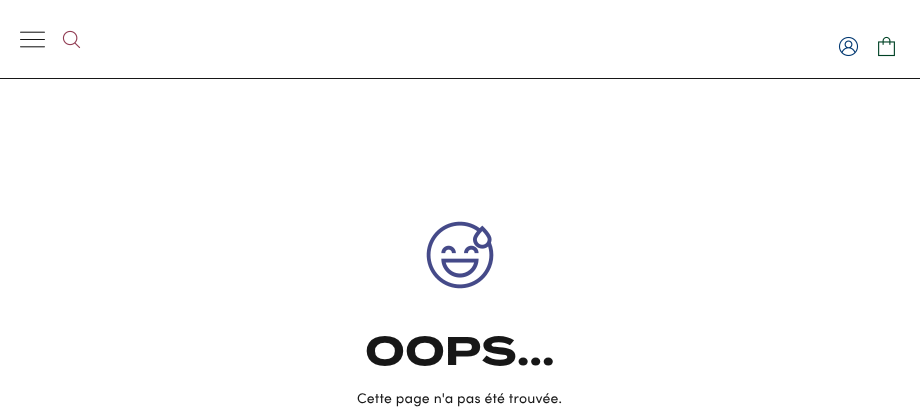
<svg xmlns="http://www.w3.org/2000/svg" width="920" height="410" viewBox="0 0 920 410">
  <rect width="100%" height="100%" fill="rgb(255,255,255)"/>
  <rect x="0" y="78" width="920" height="1" fill="rgb(23,23,23)"/>
  <image x="20" y="31" width="25" height="17" href="pic1.png"/>
  <image x="62" y="30" width="19" height="19" href="pic2.png"/>
  <image x="838" y="36" width="21" height="21" href="pic3.png"/>
  <image x="878" y="36" width="17" height="21" href="pic4.png"/>
  <image x="426" y="221" width="68" height="68" href="pic5.png"/>
  <text x="365" y="365" font-family="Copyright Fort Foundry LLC" font-size="40" font-weight="bold" fill="rgb(23,23,23)">OOPS…</text>
  <text x="357" y="403" font-family="Sofia" font-size="14" letter-spacing="0.2" fill="rgb(23,23,23)">Cette page n'a pas été trouvée.</text>
</svg>
